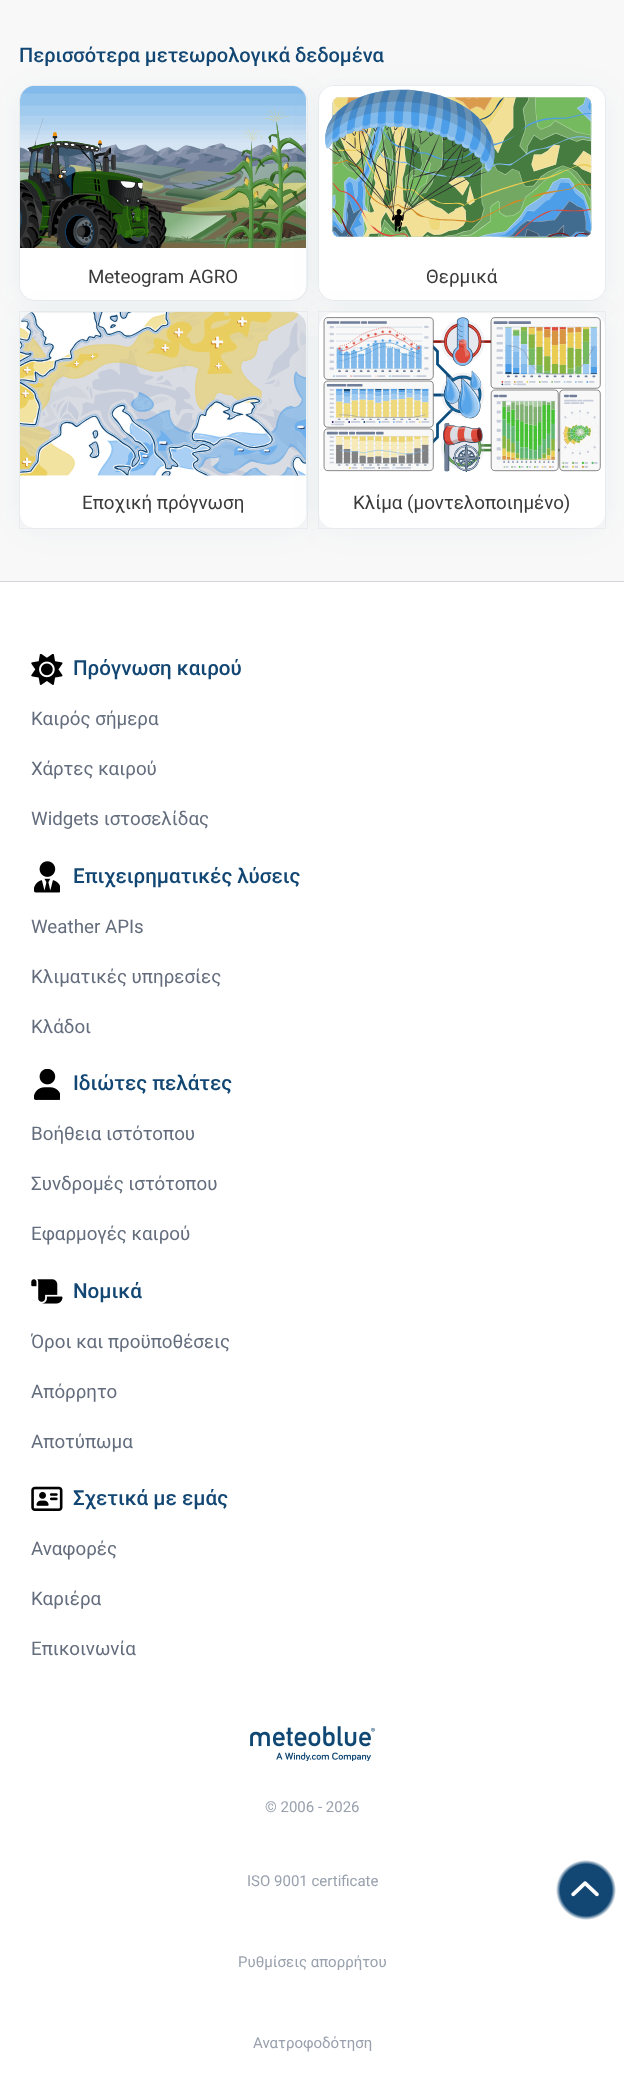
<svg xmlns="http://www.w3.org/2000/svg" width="624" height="2082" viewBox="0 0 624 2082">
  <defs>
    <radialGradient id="g1" gradientUnits="userSpaceOnUse" cx="586" cy="1890" r="30"><stop offset="0" stop-color="rgb(18,70,115)"/><stop offset="0.86" stop-color="rgb(18,70,115)"/><stop offset="1" stop-color="rgb(255,255,255)"/></radialGradient>
  </defs>
  <rect width="100%" height="100%" fill="rgb(248,248,248)"/>
  <text x="19" y="62" font-family="Roboto" font-size="20" font-weight="500" fill="rgb(18,70,115)">Περισσότερα μετεωρολογικά δεδομένα</text>
  <rect x="19.5" y="85.5" width="288" height="215" rx="15.5" fill="none" stroke="rgb(236,239,241)"/>
  <rect x="20" y="89" width="286" height="214" rx="15" fill="rgba(18,70,115,0.05)" filter="blur(15px)"/>
  <rect x="20" y="86" width="286" height="214" rx="15" fill="rgb(255,255,255)"/>
  <image x="20" y="86" width="286" height="162" href="pic1.png"/>
  <text x="88" y="283" font-family="Roboto" font-size="18.75" fill="rgb(58,58,58)">Meteogram AGRO</text>
  <rect x="318.5" y="85.5" width="287" height="215" rx="15.5" fill="none" stroke="rgb(236,239,241)"/>
  <rect x="319" y="89" width="286" height="214" rx="15" fill="rgba(18,70,115,0.05)" filter="blur(15px)"/>
  <rect x="319" y="86" width="286" height="214" rx="15" fill="rgb(255,255,255)"/>
  <image x="325" y="89" width="267" height="149" href="pic2.png"/>
  <text x="426" y="283" font-family="Roboto" font-size="18.75" fill="rgb(58,58,58)">Θερμικά</text>
  <rect x="19.5" y="311.5" width="288" height="217" fill="none" stroke="rgba(18,70,115,0.05)"/>
  <rect x="20" y="315" width="286" height="215" rx="15" fill="rgba(18,70,115,0.05)" filter="blur(15px)"/>
  <rect x="20" y="313" width="286" height="215" rx="15" fill="rgb(255,255,255)"/>
  <image x="20" y="312" width="286" height="164" href="pic3.png"/>
  <text x="82" y="509" font-family="Roboto" font-size="18.75" fill="rgb(58,58,58)">Εποχική πρόγνωση</text>
  <rect x="318.5" y="311.5" width="287" height="217" fill="none" stroke="rgba(18,70,115,0.05)"/>
  <rect x="319" y="315" width="286" height="215" rx="15" fill="rgba(18,70,115,0.05)" filter="blur(15px)"/>
  <rect x="319" y="313" width="286" height="215" rx="15" fill="rgb(255,255,255)"/>
  <image x="323" y="317" width="278" height="155" href="pic4.png"/>
  <text x="353" y="509" font-family="Roboto" font-size="18.75" fill="rgb(58,58,58)">Κλίμα (μοντελοποιημένο)</text>
  <rect x="0" y="582" width="624" height="1500" fill="rgb(255,255,255)"/>
  <rect x="0" y="581" width="624" height="1" fill="rgb(209,213,219)"/>
  <image x="31" y="654" width="32" height="31" href="pic5.png"/>
  <text x="73" y="675" font-family="Roboto" font-size="20.6" font-weight="500" fill="rgb(18,70,115)">Πρόγνωση καιρού</text>
  <g font-family="Roboto" font-size="18.75" fill="rgb(100,109,125)">
    <text x="31" y="725">Καιρός σήμερα</text>
    <text x="31" y="775">Χάρτες καιρού</text>
    <text x="31" y="825">Widgets ιστοσελίδας</text>
  </g>
  <image x="34" y="861" width="26" height="32" href="pic6.png"/>
  <text x="73" y="883" font-family="Roboto" font-size="20.6" font-weight="500" fill="rgb(18,70,115)">Επιχειρηματικές λύσεις</text>
  <g font-family="Roboto" font-size="18.75" fill="rgb(100,109,125)">
    <text x="31" y="933">Weather APIs</text>
    <text x="31" y="983">Κλιματικές υπηρεσίες</text>
    <text x="31" y="1033">Κλάδοι</text>
  </g>
  <image x="34" y="1069" width="26" height="31" href="pic7.png"/>
  <text x="73" y="1090" font-family="Roboto" font-size="20.6" font-weight="500" fill="rgb(18,70,115)">Ιδιώτες πελάτες</text>
  <g font-family="Roboto" font-size="18.75" fill="rgb(100,109,125)">
    <text x="31" y="1140">Βοήθεια ιστότοπου</text>
    <text x="31" y="1190">Συνδρομές ιστότοπου</text>
    <text x="31" y="1240">Εφαρμογές καιρού</text>
  </g>
  <image x="31" y="1279" width="32" height="25" href="pic8.png"/>
  <text x="73" y="1298" font-family="Roboto" font-size="20.6" font-weight="500" fill="rgb(18,70,115)">Νομικά</text>
  <g font-family="Roboto" font-size="18.75" fill="rgb(100,109,125)">
    <text x="31" y="1348">Όροι και προϋποθέσεις</text>
    <text x="31" y="1398">Απόρρητο</text>
    <text x="31" y="1448">Αποτύπωμα</text>
  </g>
  <image x="31" y="1486" width="32" height="25" href="pic9.png"/>
  <text x="73" y="1505" font-family="Roboto" font-size="20.6" font-weight="500" fill="rgb(18,70,115)">Σχετικά με εμάς</text>
  <g font-family="Roboto" font-size="18.75" fill="rgb(100,109,125)">
    <text x="31" y="1555">Αναφορές</text>
    <text x="31" y="1605">Καριέρα</text>
    <text x="31" y="1655">Επικοινωνία</text>
  </g>
  <image x="250" y="1726" width="125" height="35" href="pic10.png"/>
  <g font-family="Roboto" font-size="15" fill="rgb(153,161,174)">
    <text x="265" y="1812">© 2006 - 2026</text>
    <text x="247" y="1886">ISO 9001 certificate</text>
    <text x="238" y="1967">Ρυθμίσεις απορρήτου</text>
    <text x="253" y="2048">Ανατροφοδότηση</text>
  </g>
  <rect x="556" y="1860" width="60" height="60" rx="23" fill="url(#g1)"/>
  <image x="571" y="1881" width="28" height="16" href="pic11.png"/>
</svg>
